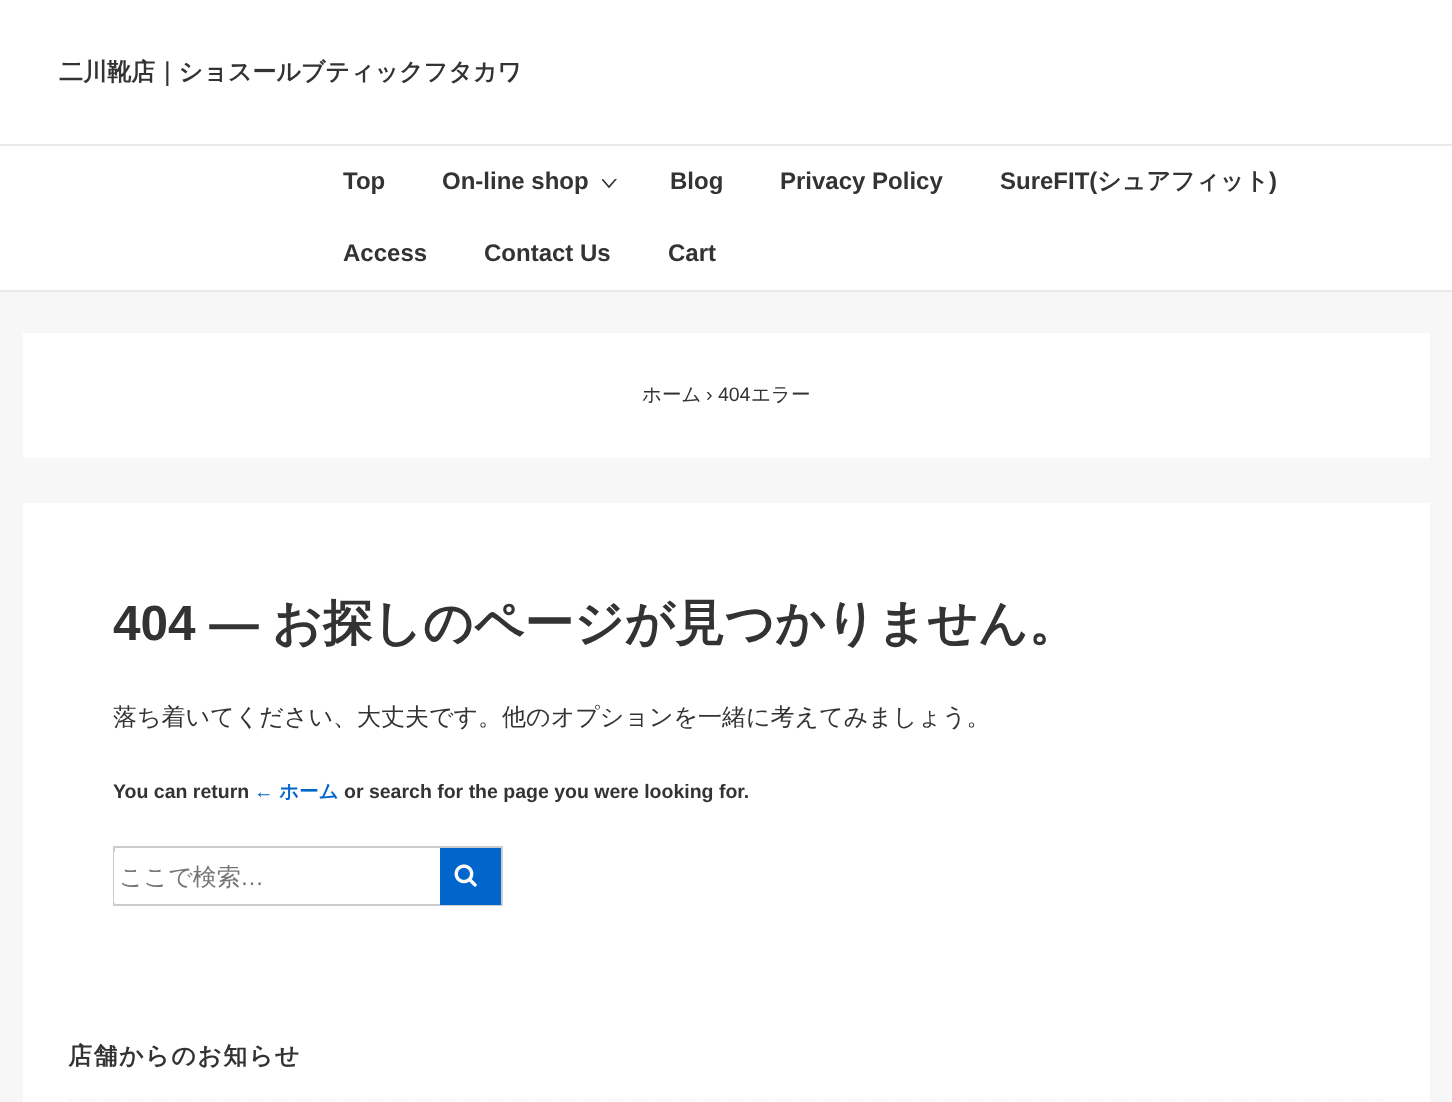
<svg xmlns="http://www.w3.org/2000/svg" width="1452" height="1102" viewBox="0 0 1452 1102">
  <defs>
    <clipPath id="clip1"><rect x="602" y="179" width="15" height="9"/></clipPath>
  </defs>
  <rect width="100%" height="100%" fill="rgb(247,247,247)"/>
  <rect x="0" y="0" width="1452" height="144" fill="rgb(255,255,255)"/>
  <rect x="0" y="144" width="1452" height="2" fill="rgb(234,234,234)"/>
  <text x="59" y="80" font-family="WenQuanYi Zen Hei" font-size="24" font-weight="bold" fill="rgb(51,51,51)">二川靴店｜ショスールブティックフタカワ</text>
  <rect x="0" y="146" width="1452" height="144" fill="rgb(255,255,255)"/>
  <rect x="0" y="290" width="1452" height="2" fill="rgb(234,234,234)"/>
  <g font-family="Liberation Sans" font-size="24" font-weight="bold" fill="rgb(51,51,51)">
    <text x="343" y="189">Top</text>
    <text x="442" y="189">On-line shop</text>
  </g>
  <g clip-path="url(#clip1)">
    <path d="M602 179L609 187L616 179" fill="none" stroke="rgb(51,51,51)" stroke-width="1.7" stroke-linecap="round"/>
  </g>
  <g font-family="Liberation Sans" font-size="24" font-weight="bold" fill="rgb(51,51,51)">
    <text x="670" y="189">Blog</text>
    <text x="780" y="189">Privacy Policy</text>
    <text x="1000" y="189">SureFIT(</text>
  </g>
  <text x="1097" y="189" font-family="WenQuanYi Zen Hei" font-size="24" font-weight="bold" fill="rgb(51,51,51)">シュアフィット</text>
  <g font-family="Liberation Sans" font-size="24" font-weight="bold" fill="rgb(51,51,51)">
    <text x="1269" y="189">)</text>
    <text x="343" y="261">Access</text>
    <text x="484" y="261">Contact Us</text>
    <text x="668" y="261">Cart</text>
  </g>
  <rect x="23" y="333" width="1407" height="125" fill="rgb(255,255,255)"/>
  <text x="642" y="401" font-family="WenQuanYi Zen Hei" font-size="19.5" font-weight="500" fill="rgb(51,51,51)">ホーム</text>
  <text x="706" y="401" font-family="Liberation Sans" font-size="19.5" fill="rgb(51,51,51)">› 404</text>
  <text x="751" y="401" font-family="WenQuanYi Zen Hei" font-size="19.5" font-weight="500" fill="rgb(51,51,51)">エラー</text>
  <rect x="23" y="503" width="1407" height="599" fill="rgb(255,255,255)"/>
  <text x="113" y="640" font-family="Liberation Sans" font-size="49.5" font-weight="bold" fill="rgb(51,51,51)">404 —</text>
  <text x="272" y="640" font-family="WenQuanYi Zen Hei" font-size="49.5" font-weight="bold" fill="rgb(51,51,51)">お探しのページが見つかりません。</text>
  <text x="113" y="725" font-family="WenQuanYi Zen Hei" font-size="24" font-weight="500" fill="rgb(51,51,51)">落ち着いてください、大丈夫です。他のオプションを一緒に考えてみましょう。</text>
  <text x="113" y="798" font-family="Liberation Sans" font-size="19.5" font-weight="bold" fill="rgb(51,51,51)">You can return</text>
  <text x="254" y="798" font-family="Liberation Sans" font-size="19.5" font-weight="bold" fill="rgb(0,102,204)">←</text>
  <text x="279" y="798" font-family="WenQuanYi Zen Hei" font-size="19.5" font-weight="bold" fill="rgb(0,102,204)">ホーム</text>
  <text x="344" y="798" font-family="Liberation Sans" font-size="19.5" font-weight="bold" fill="rgb(51,51,51)">or search for the page you were looking for.</text>
  <rect x="114" y="847" width="388" height="58" fill="none" stroke="rgb(204,204,204)" stroke-width="2"/>
  <rect x="114" y="852" width="1" height="51" fill="rgb(255,255,255)"/>
  <text x="119" y="885" font-family="WenQuanYi Zen Hei" font-size="24" font-weight="500" fill="rgb(117,117,117)">ここで検索</text>
  <text x="240" y="885" font-family="Liberation Sans" font-size="24" fill="rgb(117,117,117)">…</text>
  <rect x="440" y="848" width="61" height="57" fill="rgb(0,102,204)"/>
  <image x="454" y="864" width="23" height="23" href="pic1.png"/>
  <text x="68" y="1064" font-family="WenQuanYi Zen Hei" font-size="24" font-weight="bold" letter-spacing="1.5" fill="rgb(51,51,51)">店舗からのお知らせ</text>
  <path d="M67.5 1100H1384.5" fill="none" stroke="rgb(238,238,238)" stroke-width="1.5" stroke-dasharray="1.5 1.5"/>
</svg>
